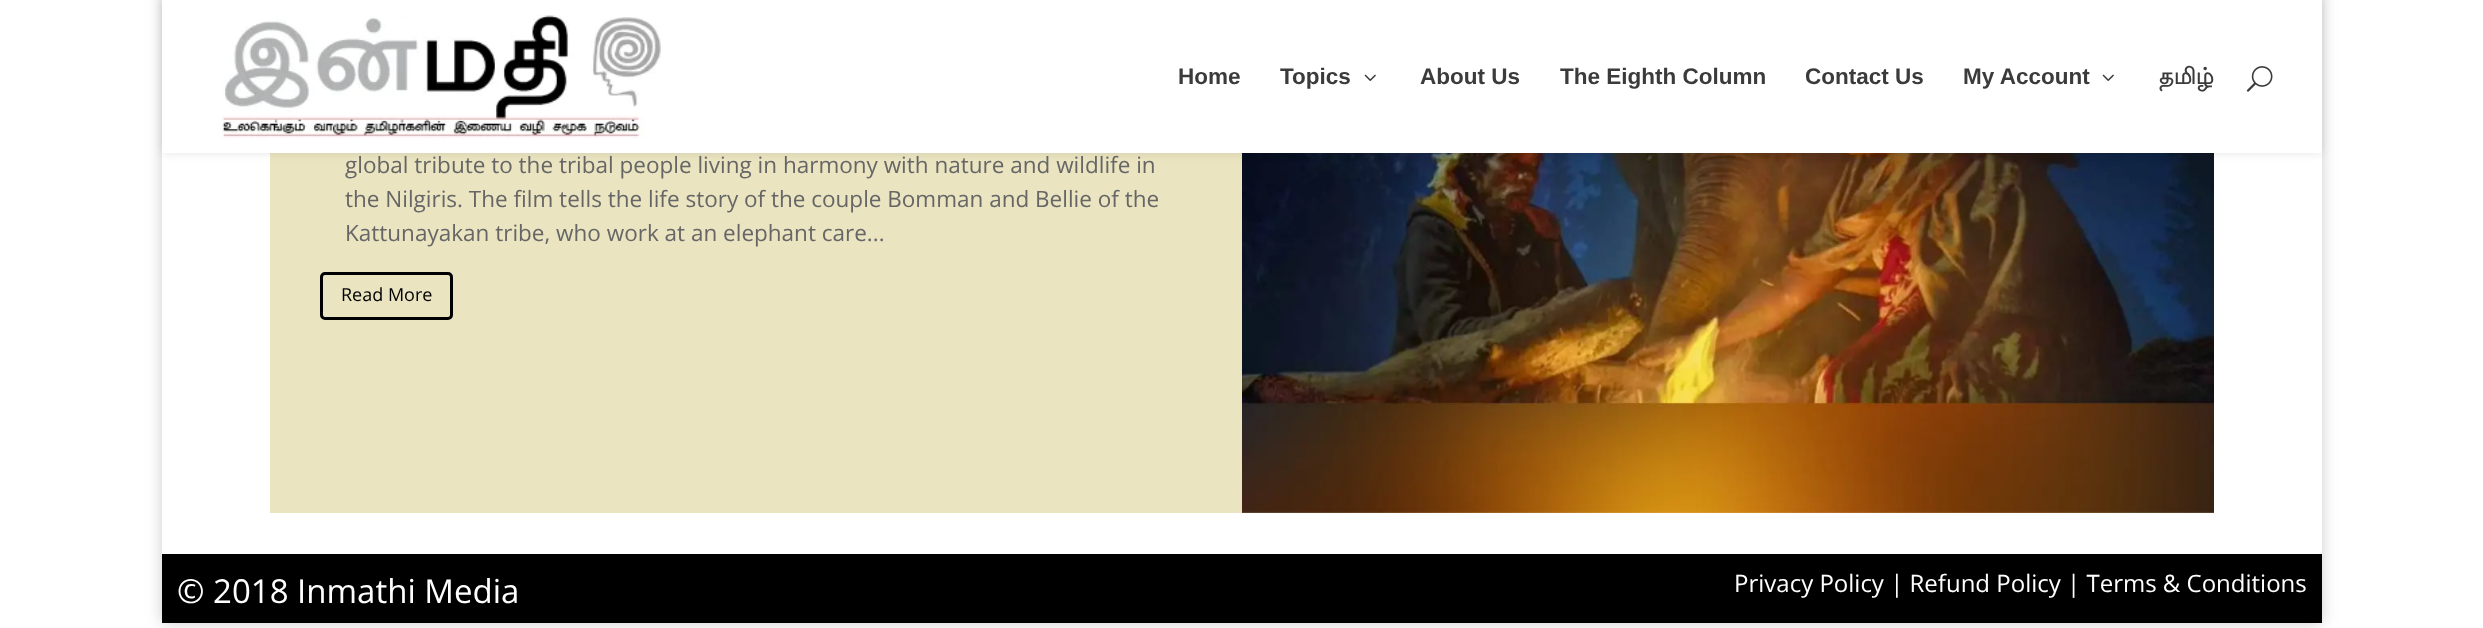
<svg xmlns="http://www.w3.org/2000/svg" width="2483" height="628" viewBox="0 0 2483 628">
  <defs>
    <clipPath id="clip1"><path d="M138 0H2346V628H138ZM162-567H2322V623H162Z" clip-rule="evenodd"/></clipPath>
  </defs>
  <rect width="100%" height="100%" fill="rgb(255,255,255)"/>
  <g clip-path="url(#clip1)">
    <rect x="162" y="-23" width="2160" height="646" fill="rgba(0,0,0,0.2)" filter="blur(7.5px)"/>
  </g>
  <rect x="270" y="153" width="1944" height="360" fill="rgb(234,228,192)"/>
  <image x="1242" y="153" width="972" height="360" href="pic4.png"/>
  <rect x="162" y="0" width="2160" height="153" fill="rgba(0,0,0,0.1)" filter="blur(5px)"/>
  <rect x="162" y="0" width="2160" height="153" fill="rgb(255,255,255)"/>
  <image x="219" y="15" width="442" height="124" href="pic1.png"/>
  <g font-family="Liberation Sans" font-size="22.5" font-weight="bold" fill="rgb(59,59,59)">
    <text x="1178" y="84">Home</text>
    <text x="1280" y="84">Topics</text>
  </g>
  <image x="1364" y="74" width="12" height="7" href="pic2.png"/>
  <g font-family="Liberation Sans" font-size="22.5" font-weight="bold" fill="rgb(59,59,59)">
    <text x="1420" y="84">About Us</text>
    <text x="1560" y="84">The Eighth Column</text>
    <text x="1805" y="84">Contact Us</text>
    <text x="1963" y="84">My Account</text>
  </g>
  <image x="2102" y="74" width="12" height="7" href="pic2.png"/>
  <text x="2159" y="84" font-family="Lohit Tamil" font-size="22.5" font-weight="bold" fill="rgb(59,59,59)">தமிழ்</text>
  <image x="2246" y="66" width="27" height="26" href="pic3.png"/>
  <g font-family="Open Sans" font-size="22.5" fill="rgb(102,102,102)">
    <text>
      <tspan x="345" y="173">global tribute to the tribal people living in harmony with nature and wildlife in</tspan>
      <tspan x="345" y="207">the Nilgiris. The film tells the life story of the couple Bomman and Bellie of the</tspan>
      <tspan x="345" y="241">Kattunayakan tribe, who work at an elephant care...</tspan>
    </text>
  </g>
  <rect x="321.5" y="273.5" width="130" height="45" rx="3.5" fill="none" stroke="rgb(0,0,0)" stroke-width="3"/>
  <text x="341" y="301" font-family="Open Sans" font-size="18" fill="rgb(0,0,0)">Read More</text>
  <rect x="162" y="554" width="2160" height="69" fill="rgb(0,0,0)"/>
  <text x="177" y="603" font-family="Open Sans" font-size="33" fill="rgb(255,255,255)">© 2018 Inmathi Media</text>
  <text x="1734" y="592" font-family="Open Sans" font-size="24" fill="rgb(255,255,255)">Privacy Policy | Refund Policy | Terms &amp; Conditions</text>
</svg>
